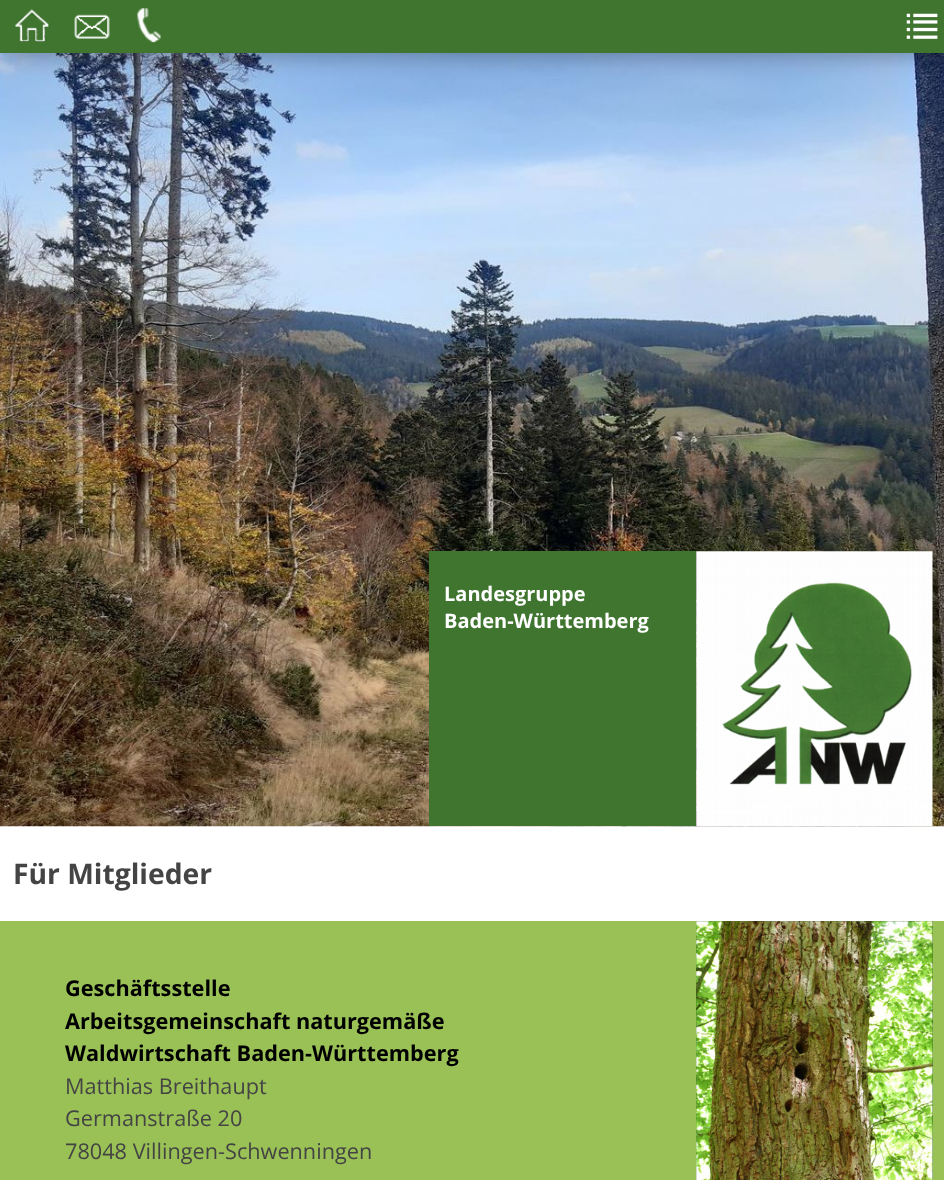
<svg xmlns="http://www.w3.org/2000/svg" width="944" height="1180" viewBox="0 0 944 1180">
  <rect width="100%" height="100%" fill="rgb(255,255,255)"/>
  <image x="0" y="53" width="944" height="774" href="pic5.png"/>
  <rect x="4" y="11" width="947" height="45" fill="rgba(0,0,0,0.3)" filter="blur(11px)"/>
  <rect x="0" y="0" width="944" height="53" fill="rgb(64,117,48)"/>
  <image x="15" y="9" width="34" height="34" href="pic1.png"/>
  <image x="74" y="14" width="36" height="25" href="pic2.png"/>
  <image x="137" y="8" width="24" height="35" href="pic3.png"/>
  <image x="906" y="13" width="32" height="26" href="pic4.png"/>
  <rect x="429" y="551" width="267" height="275" fill="rgb(64,117,48)"/>
  <g font-family="Open Sans" font-size="20" font-weight="bold" fill="rgb(255,255,255)">
    <text>
      <tspan x="444" y="601">Landesgruppe</tspan>
      <tspan x="444" y="628">Baden-Württemberg</tspan>
    </text>
  </g>
  <image x="696" y="551" width="237" height="276" href="pic6.png"/>
  <text x="13" y="884" font-family="Open Sans" font-size="28.25" font-weight="bold" fill="rgb(68,68,68)">Für Mitglieder</text>
  <rect x="0" y="921" width="944" height="259" fill="rgb(154,193,85)"/>
  <g font-family="Open Sans" font-size="21.7" font-weight="bold" fill="rgb(0,0,0)">
    <text>
      <tspan x="65" y="996">Geschäftsstelle</tspan>
      <tspan x="65" y="1029">Arbeitsgemeinschaft naturgemäße</tspan>
      <tspan x="65" y="1061">Waldwirtschaft Baden-Württemberg</tspan>
    </text>
  </g>
  <g font-family="Open Sans" font-size="21.7" fill="rgb(68,68,68)">
    <text>
      <tspan x="65" y="1094">Matthias Breithaupt</tspan>
      <tspan x="65" y="1126">Germanstraße 20</tspan>
      <tspan x="65" y="1159">78048 Villingen-Schwenningen</tspan>
    </text>
  </g>
  <rect x="696" y="921" width="237" height="259" fill="rgb(64,117,48)"/>
  <image x="696" y="921" width="237" height="259" href="pic7.png"/>
</svg>
